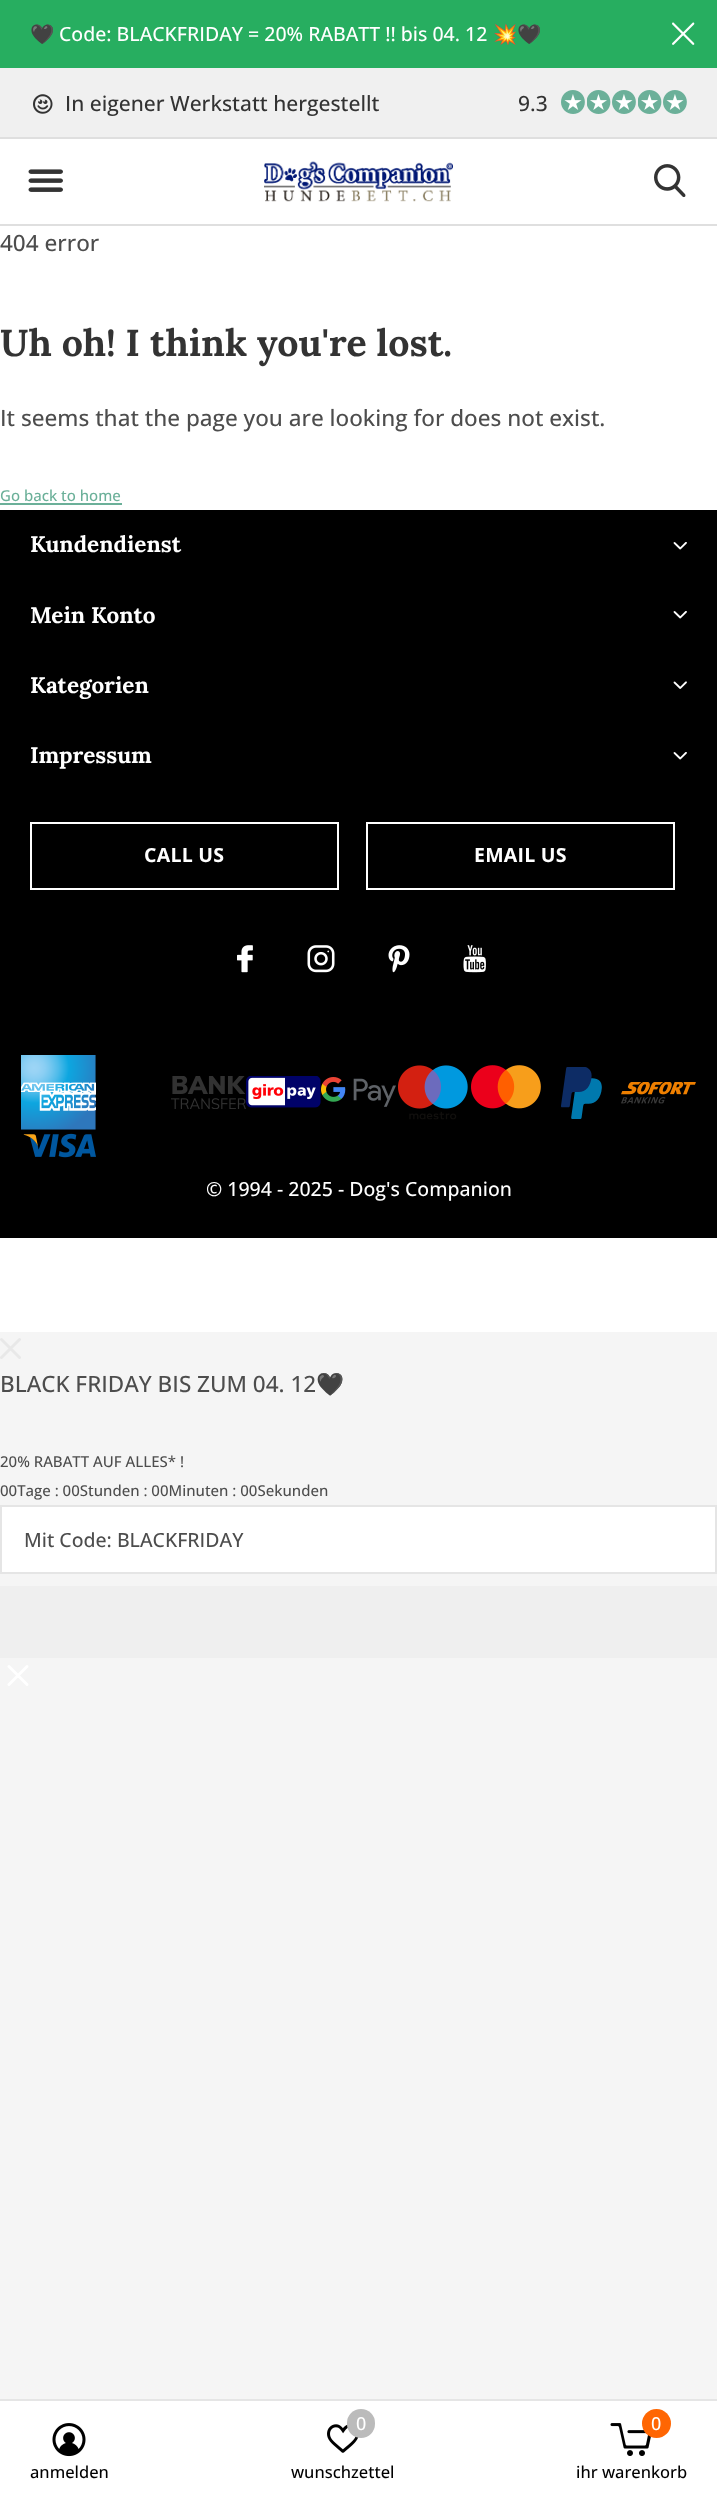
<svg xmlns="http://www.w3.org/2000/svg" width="717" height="2493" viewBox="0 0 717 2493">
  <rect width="100%" height="100%" fill="rgb(245,245,245)"/>
  <rect x="0" y="139" width="717" height="1193" fill="rgb(255,255,255)"/>
  <rect x="0" y="0" width="717" height="68" fill="rgb(39,174,96)"/>
  <text x="30" y="41" font-family="Noto Color Emoji" font-size="19.5" fill="rgb(255,255,255)">🖤</text>
  <text x="59" y="41" font-family="Open Sans" font-size="19.5" font-weight="500" fill="rgb(255,255,255)">Code: BLACKFRIDAY = 20% RABATT !! bis 04. 12</text>
  <text x="493" y="41" font-family="Noto Color Emoji" font-size="19.5" fill="rgb(255,255,255)">💥🖤</text>
  <image x="672" y="22" width="23" height="23" href="pic1.png"/>
  <rect x="0" y="68" width="717" height="69" fill="rgb(240,240,240)"/>
  <rect x="0" y="137" width="717" height="2" fill="rgb(223,223,223)"/>
  <image x="33" y="94" width="20" height="20" href="pic2.png"/>
  <g font-family="Open Sans" font-size="21" font-weight="500" fill="rgb(51,51,51)">
    <text x="65" y="111">In eigener Werkstatt hergestellt</text>
    <text x="518" y="111">9.3</text>
  </g>
  <image x="561" y="90" width="24" height="24" href="pic3.png"/>
  <image x="587" y="90" width="24" height="24" href="pic4.png"/>
  <image x="612" y="90" width="24" height="24" href="pic3.png"/>
  <image x="638" y="90" width="24" height="24" href="pic4.png"/>
  <image x="663" y="90" width="24" height="24" href="pic3.png"/>
  <image x="28" y="169" width="35" height="23" href="pic5.png"/>
  <image x="264" y="161" width="189" height="41" href="pic6.png"/>
  <image x="654" y="164" width="32" height="34" href="pic7.png"/>
  <rect x="0" y="224" width="717" height="2" fill="rgb(223,223,223)"/>
  <text x="0" y="251" font-family="Open Sans" font-size="22.5" font-weight="500" fill="rgb(77,77,77)">404 error</text>
  <text x="0" y="356" font-family="Lora" font-size="37.5" font-weight="bold" fill="rgb(51,51,51)">Uh oh! I think you're lost.</text>
  <text x="0" y="426" font-family="Open Sans" font-size="22.5" font-weight="500" fill="rgb(77,77,77)">It seems that the page you are looking for does not exist.</text>
  <text x="0" y="501" font-family="Open Sans" font-size="15" font-weight="500" fill="rgb(107,176,153)">Go back to home</text>
  <rect x="0" y="503" width="122" height="2" fill="rgb(107,176,153)"/>
  <rect x="0" y="510" width="717" height="728" fill="rgb(0,0,0)"/>
  <text x="30" y="552" font-family="Lora" font-size="22.5" font-weight="bold" fill="rgb(255,255,255)">Kundendienst</text>
  <image x="673" y="542" width="14" height="8" href="pic8.png"/>
  <text x="30" y="623" font-family="Lora" font-size="22.5" font-weight="bold" fill="rgb(255,255,255)">Mein Konto</text>
  <image x="673" y="611" width="14" height="8" href="pic8.png"/>
  <text x="30" y="693" font-family="Lora" font-size="22.5" font-weight="bold" fill="rgb(255,255,255)">Kategorien</text>
  <image x="673" y="681" width="14" height="8" href="pic9.png"/>
  <text x="30" y="763" font-family="Lora" font-size="22.5" font-weight="bold" fill="rgb(255,255,255)">Impressum</text>
  <image x="673" y="752" width="14" height="8" href="pic8.png"/>
  <rect x="31" y="823" width="307" height="66" fill="none" stroke="rgb(255,255,255)" stroke-width="2"/>
  <text x="144" y="862" font-family="Open Sans" font-size="19.5" font-weight="bold" letter-spacing="0.25" fill="rgb(255,255,255)">CALL US</text>
  <rect x="367" y="823" width="307" height="66" fill="none" stroke="rgb(255,255,255)" stroke-width="2"/>
  <text x="474" y="862" font-family="Open Sans" font-size="19.5" font-weight="bold" letter-spacing="0.25" fill="rgb(255,255,255)">EMAIL US</text>
  <image x="237" y="945" width="16" height="28" href="pic10.png"/>
  <image x="307" y="945" width="28" height="28" href="pic11.png"/>
  <image x="388" y="945" width="22" height="28" href="pic12.png"/>
  <image x="463" y="945" width="23" height="28" href="pic13.png"/>
  <image x="21" y="1055" width="75" height="75" href="pic14.png"/>
  <image x="171" y="1076" width="75" height="33" href="pic15.png"/>
  <image x="246" y="1076" width="75" height="32" href="pic16.png"/>
  <image x="321" y="1077" width="75" height="30" href="pic17.png"/>
  <image x="398" y="1065" width="70" height="55" href="pic18.png"/>
  <image x="471" y="1065" width="70" height="44" href="pic19.png"/>
  <image x="561" y="1067" width="41" height="52" href="pic20.png"/>
  <image x="621" y="1082" width="75" height="22" href="pic21.png"/>
  <image x="23" y="1133" width="73" height="25" href="pic22.png"/>
  <text x="206" y="1196" font-family="Open Sans" font-size="19.5" font-weight="500" fill="rgb(255,255,255)">© 1994 - 2025 - Dog's Companion</text>
  <rect x="0" y="2401" width="717" height="92" fill="rgb(255,255,255)"/>
  <rect x="0" y="2399" width="717" height="2" fill="rgb(229,229,229)"/>
  <image x="52" y="2423" width="34" height="34" href="pic23.png"/>
  <text x="30" y="2478" font-family="Open Sans" font-size="16.5" font-weight="500" fill="rgb(0,0,0)">anmelden</text>
  <image x="327" y="2424" width="32" height="29" href="pic24.png"/>
  <rect x="347" y="2409" width="28" height="29" rx="14" fill="rgb(187,187,187)"/>
  <text x="356" y="2430" font-family="Open Sans" font-size="18" font-weight="500" fill="rgb(255,255,255)">0</text>
  <text x="291" y="2478" font-family="Open Sans" font-size="16.5" font-weight="500" fill="rgb(0,0,0)">wunschzettel</text>
  <image x="610" y="2423" width="41" height="33" href="pic25.png"/>
  <circle cx="656.5" cy="2423.5" r="14.5" fill="rgb(255,102,2)"/>
  <text x="651" y="2430" font-family="Open Sans" font-size="18" font-weight="500" fill="rgb(255,255,255)">0</text>
  <text x="576" y="2478" font-family="Open Sans" font-size="16.5" font-weight="500" fill="rgb(0,0,0)">ihr warenkorb</text>
  <path d="M1.5 1357.5L19.5 1339.5M1.5 1339.5L19.5 1357.5" fill="none" stroke="rgb(232,232,232)" stroke-width="3" stroke-linecap="round" stroke-linejoin="round"/>
  <text x="0" y="1392" font-family="Open Sans" font-size="22.5" font-weight="500" fill="rgb(77,77,77)">BLACK FRIDAY BIS ZUM 04. 12</text>
  <text x="316" y="1392" font-family="Noto Color Emoji" font-size="22.5" fill="rgb(77,77,77)">🖤</text>
  <g font-family="Open Sans" font-size="15" font-weight="500" fill="rgb(77,77,77)">
    <text>
      <tspan x="0" y="1467">20% RABATT AUF ALLES* !</tspan>
      <tspan x="0" y="1496">00Tage : 00Stunden : 00Minuten : 00Sekunden</tspan>
    </text>
  </g>
  <rect x="1" y="1506" width="715" height="67" fill="rgb(255,255,255)" stroke="rgb(229,229,229)" stroke-width="2"/>
  <text x="24" y="1547" font-family="Open Sans" font-size="19.5" font-weight="500" fill="rgb(77,77,77)">Mit Code: BLACKFRIDAY</text>
  <rect x="0" y="1586" width="717" height="72" fill="rgb(239,239,239)"/>
  <path d="M9 1684.5L27 1666.5M9 1666.5L27 1684.5" fill="none" stroke="rgb(255,255,255)" stroke-width="3" stroke-linecap="round" stroke-linejoin="round"/>
</svg>
